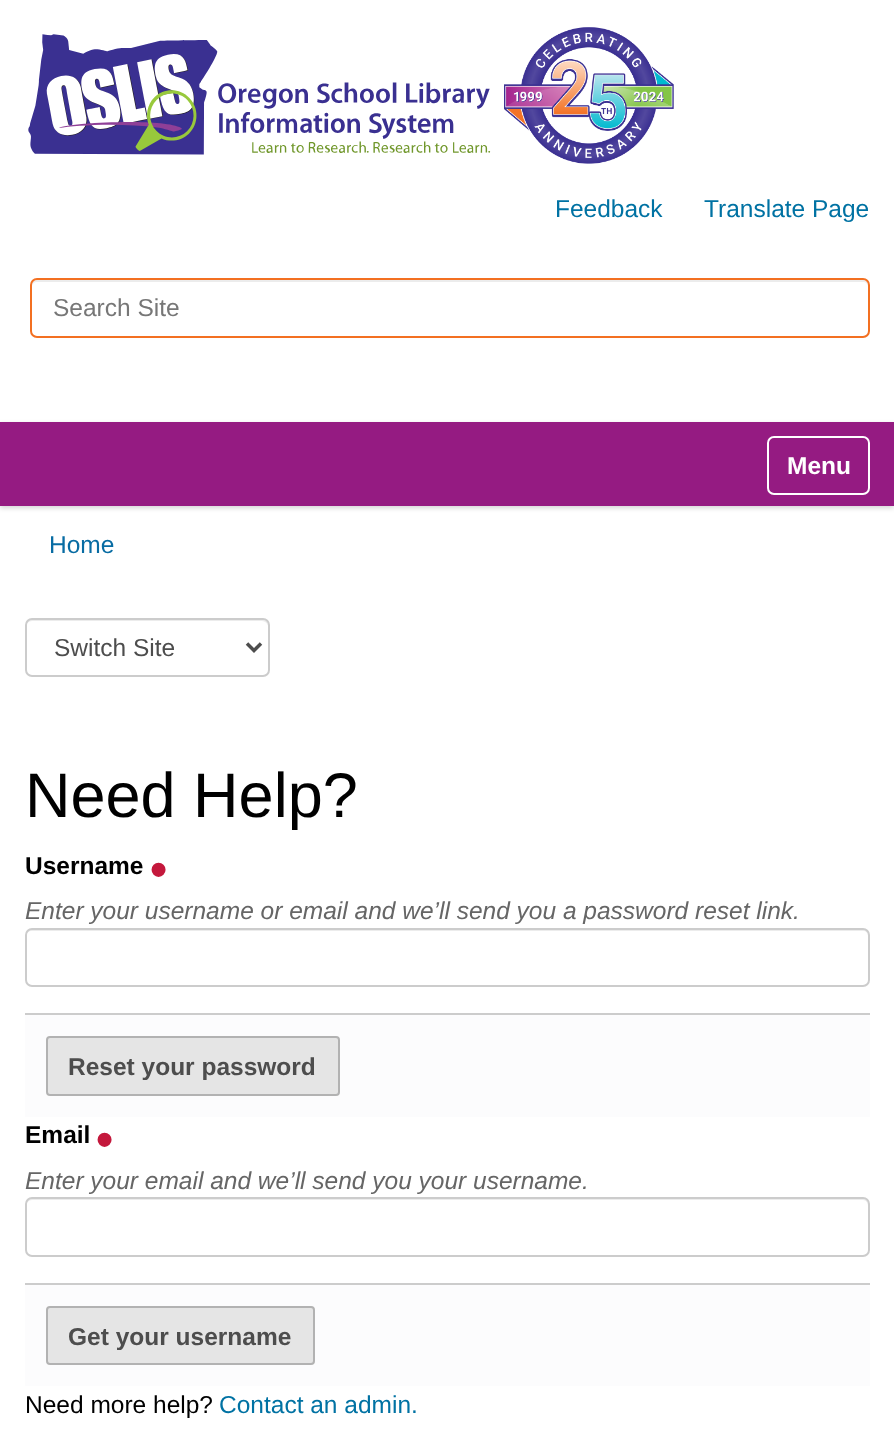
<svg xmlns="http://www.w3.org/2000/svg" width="894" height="1454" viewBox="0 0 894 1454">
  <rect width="100%" height="100%" fill="rgb(255,255,255)"/>
  <image x="28" y="34" width="463" height="121" href="pic1.png"/>
  <image x="504" y="27" width="170" height="137" href="pic2.png"/>
  <g font-family="Liberation Sans" font-size="24.5" fill="rgb(0,114,163)">
    <text x="555" y="217">Feedback</text>
    <text x="704" y="217">Translate Page</text>
  </g>
  <path d="M37 282H863C866 282 868 284 868 287V285C868 282 866 280 863 280H37C34 280 32 282 32 285V287C32 284 34 282 37 282Z" fill="rgb(236,236,236)"/>
  <rect x="31" y="279" width="838" height="58" rx="6" fill="none" stroke="rgb(243,112,33)" stroke-width="2"/>
  <text x="53" y="316" font-family="Liberation Sans" font-size="24.5" fill="rgb(119,119,119)">Search Site</text>
  <rect x="0" y="424" width="894" height="84" fill="rgba(0,0,0,0.17)" filter="blur(2.5px)"/>
  <rect x="0" y="422" width="894" height="84" fill="rgb(149,27,130)"/>
  <rect x="768" y="437" width="101" height="57" rx="6" fill="none" stroke="rgb(255,255,255)" stroke-width="2"/>
  <text x="787" y="474" font-family="Liberation Sans" font-size="24.5" font-weight="bold" fill="rgb(255,255,255)">Menu</text>
  <text x="49" y="553" font-family="Liberation Sans" font-size="24.5" fill="rgb(8,108,163)">Home</text>
  <path d="M32 621H262C265 621 268 624 268 626V625C268 622 266 620 263 620H31C28 620 26 622 26 625V626C26 624 29 621 32 621Z" fill="rgb(236,236,236)"/>
  <rect x="26" y="619" width="243" height="57" rx="6" fill="none" stroke="rgb(204,204,204)" stroke-width="2"/>
  <path d="M247 643.5L254 650.5L261 643.5" fill="none" stroke="rgb(77,77,77)" stroke-width="3.5"/>
  <text x="54" y="656" font-family="Liberation Sans" font-size="24.5" fill="rgb(77,77,77)">Switch Site</text>
  <text x="25" y="817" font-family="Liberation Sans" font-size="63" fill="rgb(0,0,0)">Need Help?</text>
  <text x="25" y="874" font-family="Liberation Sans" font-size="24.5" font-weight="bold" fill="rgb(0,0,0)">Username</text>
  <text x="150" y="886" font-family="Liberation Sans" font-size="49" font-weight="bold" fill="rgb(196,24,60)">•</text>
  <text x="25" y="919" font-family="Liberation Sans" font-size="24.5" font-style="italic" fill="rgb(102,102,102)">Enter your username or email and we’ll send you a password reset link.</text>
  <path d="M32 931H863C866 931 868 933 868 936V934C868 931 866 929 863 929H31C28 929 26 931 26 934V936C26 933 29 931 32 931Z" fill="rgb(236,236,236)"/>
  <rect x="26" y="929" width="843" height="57" rx="6" fill="none" stroke="rgb(204,204,204)" stroke-width="2"/>
  <rect x="25" y="1015" width="845" height="102" fill="rgb(252,252,253)"/>
  <rect x="25" y="1013" width="845" height="2" fill="rgb(204,204,204)"/>
  <rect x="47" y="1037" width="292" height="58" rx="3" fill="rgb(229,229,229)" stroke="rgb(178,178,178)" stroke-width="2"/>
  <text x="68" y="1075" font-family="Liberation Sans" font-size="24.5" font-weight="bold" fill="rgb(77,77,77)">Reset your password</text>
  <text x="25" y="1143" font-family="Liberation Sans" font-size="24.5" font-weight="bold" fill="rgb(0,0,0)">Email</text>
  <text x="96" y="1156" font-family="Liberation Sans" font-size="49" font-weight="bold" fill="rgb(196,24,60)">•</text>
  <text x="25" y="1189" font-family="Liberation Sans" font-size="24.5" font-style="italic" fill="rgb(102,102,102)">Enter your email and we’ll send you your username.</text>
  <path d="M32 1200H863C866 1200 868 1203 868 1206V1204C868 1201 866 1199 863 1199H31C28 1199 26 1201 26 1204V1206C26 1203 29 1200 32 1200Z" fill="rgb(236,236,236)"/>
  <rect x="26" y="1198" width="843" height="58" rx="6" fill="none" stroke="rgb(204,204,204)" stroke-width="2"/>
  <rect x="25" y="1285" width="845" height="101" fill="rgb(252,252,253)"/>
  <rect x="25" y="1283" width="845" height="2" fill="rgb(204,204,204)"/>
  <rect x="47" y="1307" width="267" height="57" rx="3" fill="rgb(229,229,229)" stroke="rgb(178,178,178)" stroke-width="2"/>
  <text x="68" y="1345" font-family="Liberation Sans" font-size="24.5" font-weight="bold" fill="rgb(77,77,77)">Get your username</text>
  <text x="25" y="1413" font-family="Liberation Sans" font-size="24.5" fill="rgb(0,0,0)">Need more help?</text>
  <text x="219" y="1413" font-family="Liberation Sans" font-size="24.5" fill="rgb(0,114,163)">Contact an admin.</text>
</svg>
